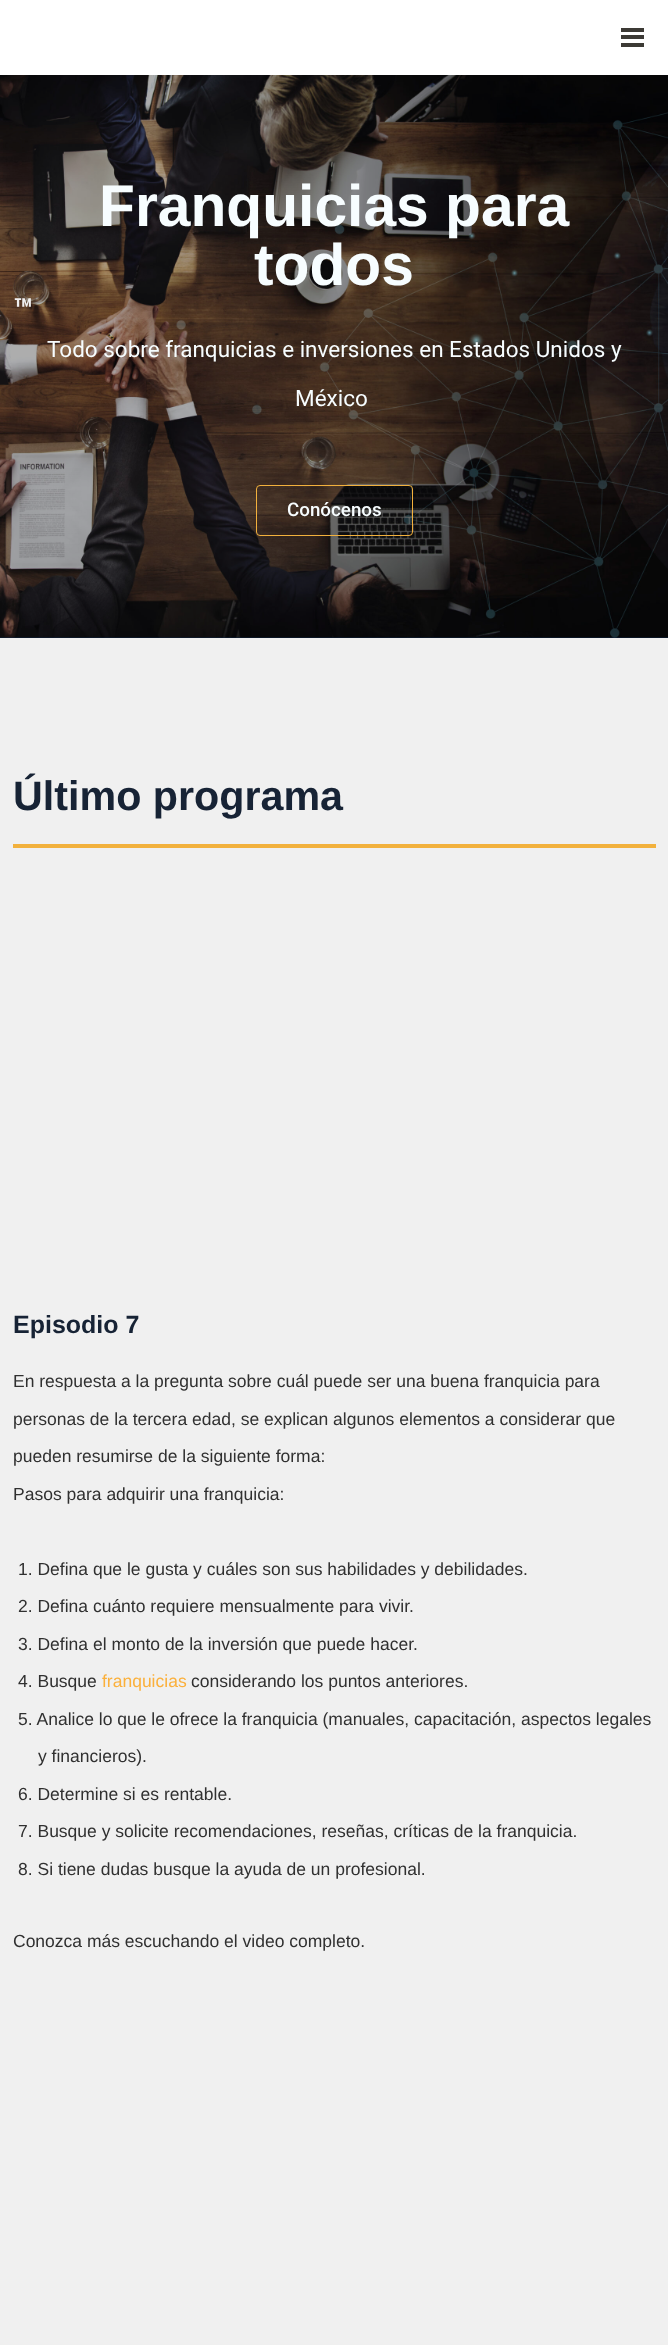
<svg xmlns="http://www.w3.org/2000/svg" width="668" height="2345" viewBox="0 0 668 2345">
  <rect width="100%" height="100%" fill="rgb(12,35,65)"/>
  <rect x="0" y="0" width="668" height="75" fill="rgb(255,255,255)"/>
  <rect x="621" y="28" width="23" height="4" fill="rgb(60,58,53)"/>
  <rect x="621" y="35" width="23" height="4" fill="rgb(60,58,53)"/>
  <rect x="621" y="43" width="23" height="4" fill="rgb(60,58,53)"/>
  <image x="0" y="75" width="668" height="563" href="pic1.png"/>
  <g font-family="Liberation Sans" font-size="58.75" font-weight="bold" fill="rgb(247,253,255)">
    <text x="99" y="226">Franquicias para</text>
    <text x="254" y="285">todos</text>
  </g>
  <text x="13" y="321" font-family="Roboto" font-size="32" font-weight="bold" fill="rgb(240,240,240)">™</text>
  <g font-family="Roboto" font-size="22.5" fill="rgb(247,253,255)">
    <text x="47" y="357">Todo sobre franquicias e inversiones en Estados Unidos y</text>
    <text x="295" y="406">México</text>
  </g>
  <rect x="256.5" y="485.5" width="156" height="50" rx="3.5" fill="none" stroke="rgb(242,177,61)"/>
  <text x="287" y="516" font-family="Roboto" font-size="18.75" font-weight="500" fill="rgb(247,253,255)">Conócenos</text>
  <rect x="0" y="638" width="668" height="1707" fill="rgb(240,240,240)"/>
  <text x="13" y="810" font-family="Liberation Sans" font-size="41.25" font-weight="bold" fill="rgb(23,35,53)">Último programa</text>
  <rect x="13" y="844" width="643" height="4" fill="rgb(242,177,61)"/>
  <text x="13" y="1333" font-family="Liberation Sans" font-size="25" font-weight="bold" fill="rgb(23,35,53)">Episodio 7</text>
  <g font-family="Liberation Sans" font-size="17.5" fill="rgb(48,48,48)">
    <text x="13" y="1387">En respuesta a la pregunta sobre cuál puede ser una buena franquicia para</text>
    <text x="13" y="1425">personas de la tercera edad, se explican algunos elementos a considerar que</text>
    <text x="13" y="1462">pueden resumirse de la siguiente forma:</text>
    <text x="13" y="1500">Pasos para adquirir una franquicia:</text>
    <text x="18" y="1575">1. Defina que le gusta y cuáles son sus habilidades y debilidades.</text>
    <text x="18" y="1612">2. Defina cuánto requiere mensualmente para vivir.</text>
    <text x="18" y="1650">3. Defina el monto de la inversión que puede hacer.</text>
    <text x="18" y="1687">4. Busque</text>
  </g>
  <text x="102" y="1687" font-family="Liberation Sans" font-size="17.5" fill="rgb(251,176,59)">franquicias</text>
  <g font-family="Liberation Sans" font-size="17.5" fill="rgb(48,48,48)">
    <text x="191" y="1687">considerando los puntos anteriores.</text>
    <text x="18" y="1725">5. Analice lo que le ofrece la franquicia (manuales, capacitación, aspectos legales</text>
    <text x="38" y="1762">y financieros).</text>
    <text x="18" y="1800">6. Determine si es rentable.</text>
    <text x="18" y="1837">7. Busque y solicite recomendaciones, reseñas, críticas de la franquicia.</text>
    <text x="18" y="1875">8. Si tiene dudas busque la ayuda de un profesional.</text>
    <text x="13" y="1947">Conozca más escuchando el video completo.</text>
  </g>
</svg>
